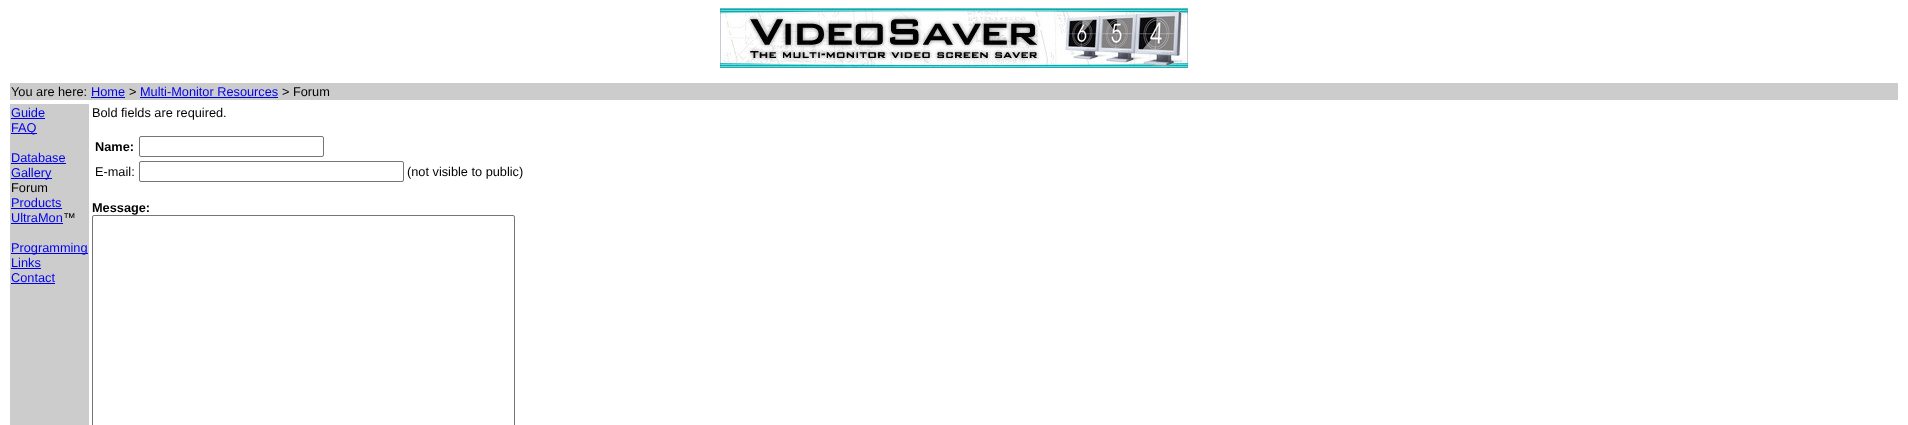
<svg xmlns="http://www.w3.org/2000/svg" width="1908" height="425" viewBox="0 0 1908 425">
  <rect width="100%" height="100%" fill="rgb(255,255,255)"/>
  <image x="720" y="8" width="468" height="60" href="pic1.png"/>
  <rect x="10" y="83" width="1888" height="17" fill="rgb(204,204,204)"/>
  <text x="11" y="96" font-family="Liberation Sans" font-size="12.75" fill="rgb(0,0,0)">You are here:</text>
  <text x="91" y="96" font-family="Liberation Sans" font-size="12.75" fill="rgb(0,0,238)">Home</text>
  <rect x="91" y="97" width="34" height="1" fill="rgb(0,0,238)"/>
  <text x="129" y="96" font-family="Liberation Sans" font-size="12.75" fill="rgb(0,0,0)">&gt;</text>
  <text x="140" y="96" font-family="Liberation Sans" font-size="12.75" fill="rgb(0,0,238)">Multi-Monitor Resources</text>
  <rect x="140" y="97" width="138" height="1" fill="rgb(0,0,238)"/>
  <text x="282" y="96" font-family="Liberation Sans" font-size="12.75" fill="rgb(0,0,0)">&gt; Forum</text>
  <rect x="10" y="104" width="79" height="321" fill="rgb(204,204,204)"/>
  <text x="11" y="117" font-family="Liberation Sans" font-size="12.75" fill="rgb(0,0,238)">Guide</text>
  <rect x="11" y="118" width="34" height="1" fill="rgb(0,0,238)"/>
  <rect x="11" y="133" width="26" height="1" fill="rgb(0,0,238)"/>
  <g font-family="Liberation Sans" font-size="12.75" fill="rgb(0,0,238)">
    <text x="11" y="132">FAQ</text>
    <text x="11" y="162">Database</text>
  </g>
  <rect x="11" y="163" width="55" height="1" fill="rgb(0,0,238)"/>
  <rect x="11" y="178" width="41" height="1" fill="rgb(0,0,238)"/>
  <text x="11" y="177" font-family="Liberation Sans" font-size="12.75" fill="rgb(0,0,238)">Gallery</text>
  <text x="11" y="192" font-family="Liberation Sans" font-size="12.75" fill="rgb(0,0,0)">Forum</text>
  <text x="11" y="207" font-family="Liberation Sans" font-size="12.75" fill="rgb(0,0,238)">Products</text>
  <rect x="11" y="208" width="51" height="1" fill="rgb(0,0,238)"/>
  <text x="11" y="222" font-family="Liberation Sans" font-size="12.75" fill="rgb(0,0,238)">UltraMon</text>
  <rect x="11" y="223" width="52" height="1" fill="rgb(0,0,238)"/>
  <text x="63" y="222" font-family="Liberation Sans" font-size="12.75" fill="rgb(0,0,0)">™</text>
  <rect x="11" y="253" width="77" height="1" fill="rgb(0,0,238)"/>
  <g font-family="Liberation Sans" font-size="12.75" fill="rgb(0,0,238)">
    <text>
      <tspan x="11" y="252">Programming</tspan>
      <tspan x="11" y="267">Links</tspan>
    </text>
  </g>
  <rect x="11" y="268" width="30" height="1" fill="rgb(0,0,238)"/>
  <text x="11" y="282" font-family="Liberation Sans" font-size="12.75" fill="rgb(0,0,238)">Contact</text>
  <rect x="11" y="283" width="44" height="1" fill="rgb(0,0,238)"/>
  <text x="92" y="117" font-family="Liberation Sans" font-size="12.75" fill="rgb(0,0,0)">Bold fields are required.</text>
  <text x="95" y="151" font-family="Liberation Sans" font-size="12.75" font-weight="bold" fill="rgb(0,0,0)">Name:</text>
  <rect x="139.5" y="136.5" width="184" height="20" rx="1.5" fill="none" stroke="rgb(118,118,118)"/>
  <text x="95" y="176" font-family="Liberation Sans" font-size="12.75" fill="rgb(0,0,0)">E-mail:</text>
  <rect x="139.5" y="161.5" width="264" height="20" rx="1.5" fill="none" stroke="rgb(118,118,118)"/>
  <text x="407" y="176" font-family="Liberation Sans" font-size="12.75" fill="rgb(0,0,0)">(not visible to public)</text>
  <text x="92" y="212" font-family="Liberation Sans" font-size="12.75" font-weight="bold" fill="rgb(0,0,0)">Message:</text>
  <rect x="92.5" y="215.5" width="422" height="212" rx="1.5" fill="none" stroke="rgb(118,118,118)"/>
</svg>
